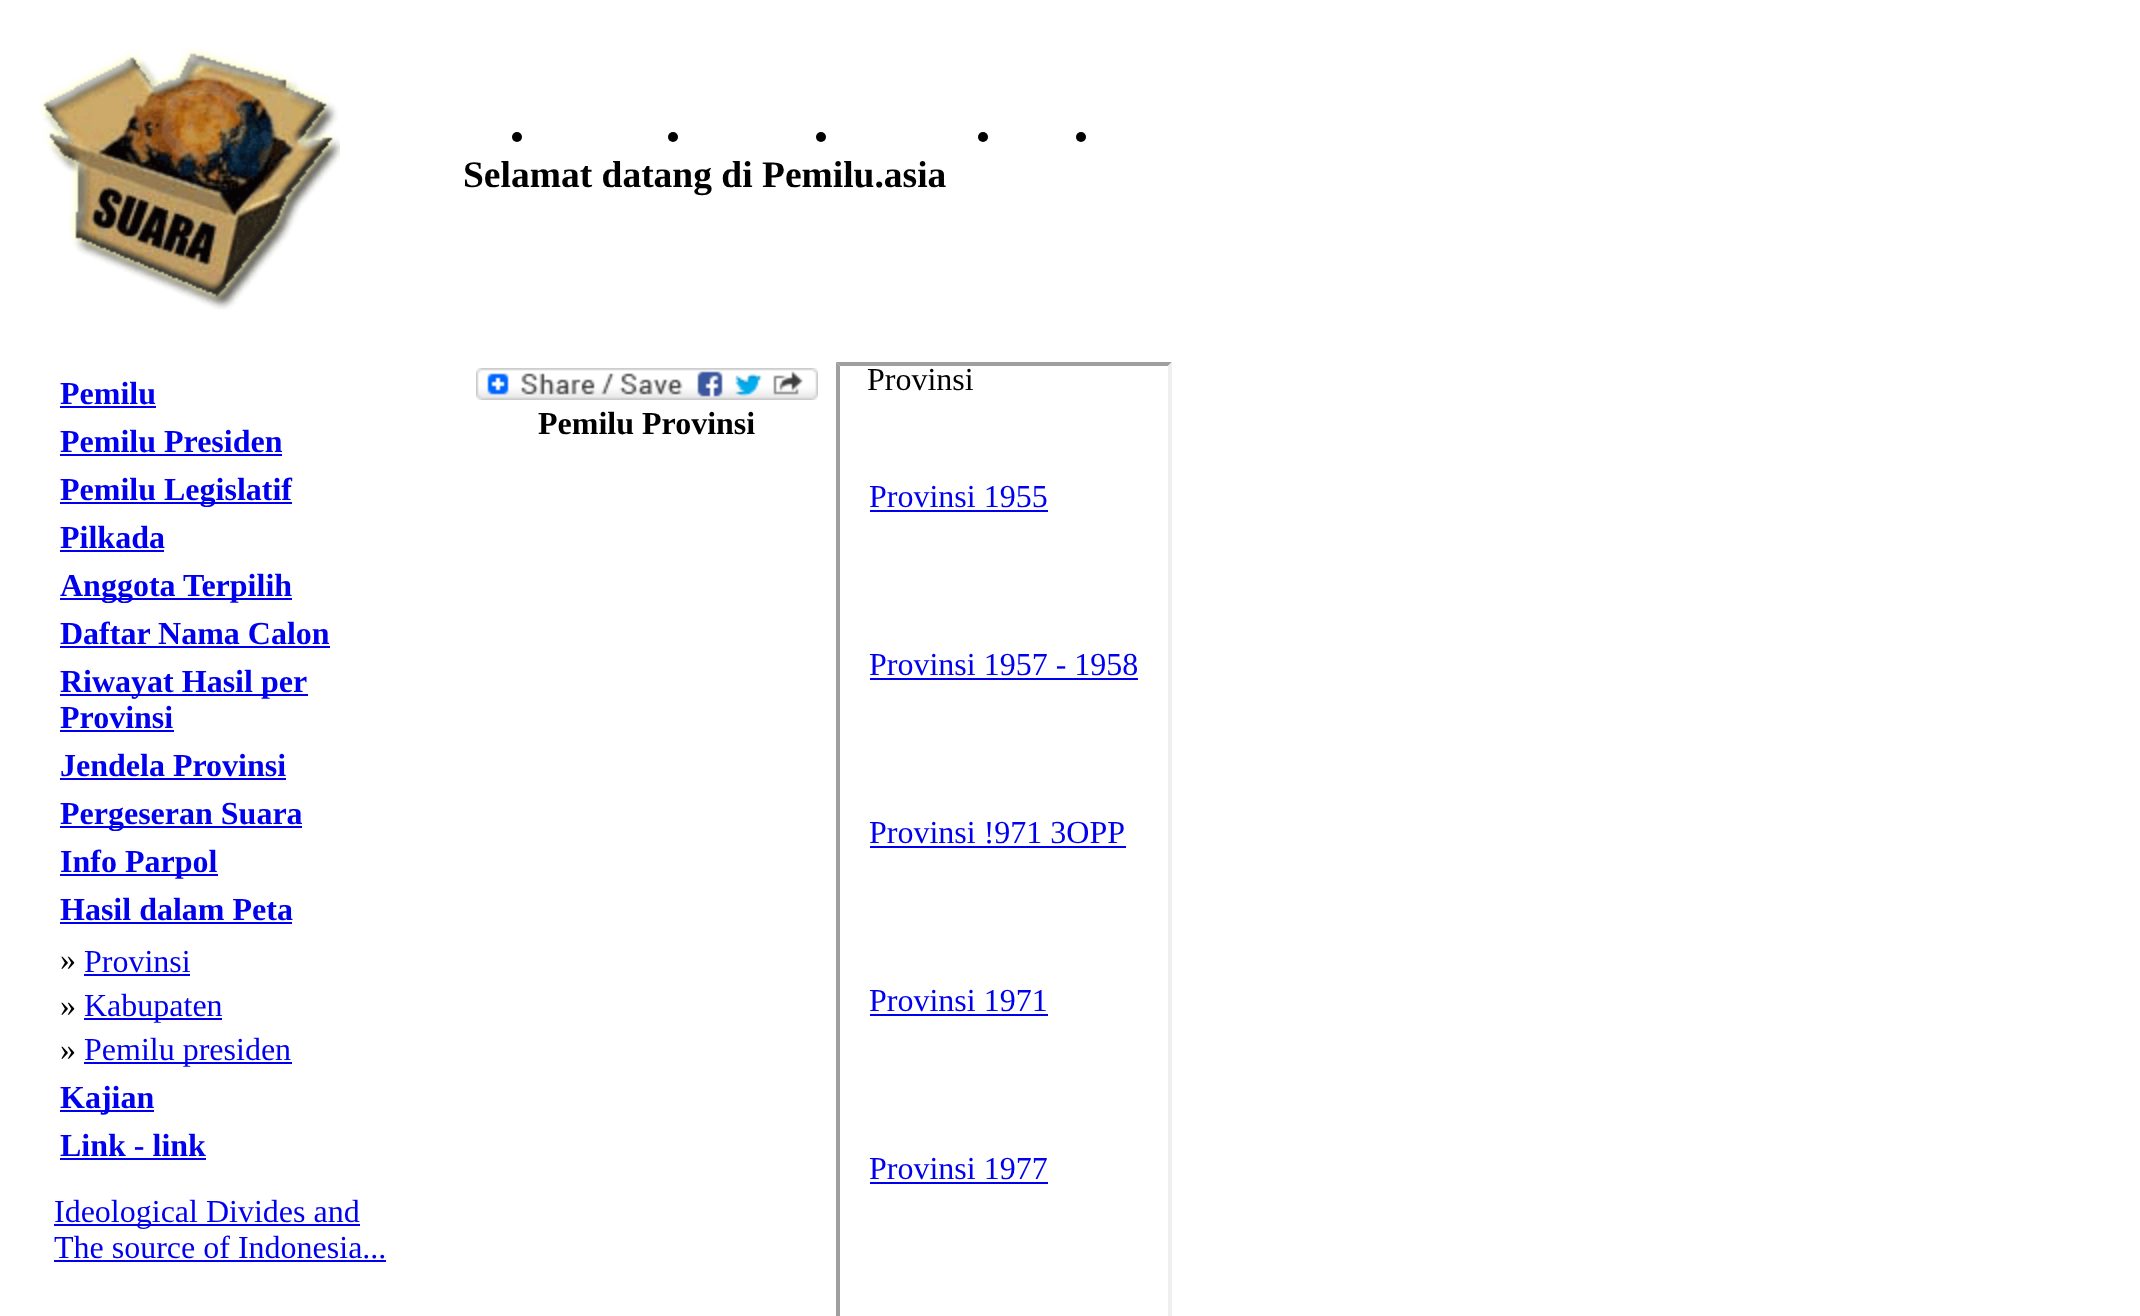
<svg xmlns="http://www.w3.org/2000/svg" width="2140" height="1316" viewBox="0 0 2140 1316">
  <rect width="100%" height="100%" fill="rgb(255,255,255)"/>
  <image x="40" y="48" width="300" height="262" href="pic1.png"/>
  <circle cx="517" cy="137" r="5" fill="rgb(0,0,0)"/>
  <circle cx="673" cy="137" r="5" fill="rgb(0,0,0)"/>
  <circle cx="821" cy="137" r="5" fill="rgb(0,0,0)"/>
  <circle cx="983" cy="137" r="5" fill="rgb(0,0,0)"/>
  <circle cx="1081" cy="137" r="5" fill="rgb(0,0,0)"/>
  <text x="463" y="187" font-family="Liberation Serif" font-size="37.5" font-weight="bold" fill="rgb(0,0,0)">Selamat datang di Pemilu.asia</text>
  <text x="60" y="404" font-family="Liberation Serif" font-size="32" font-weight="bold" fill="rgb(0,0,238)">Pemilu</text>
  <rect x="60" y="406" width="96" height="2" fill="rgb(0,0,238)"/>
  <text x="60" y="452" font-family="Liberation Serif" font-size="32" font-weight="bold" fill="rgb(0,0,238)">Pemilu Presiden</text>
  <rect x="60" y="454" width="222" height="2" fill="rgb(0,0,238)"/>
  <rect x="60" y="502" width="232" height="2" fill="rgb(0,0,238)"/>
  <g font-family="Liberation Serif" font-size="32" font-weight="bold" fill="rgb(0,0,238)">
    <text>
      <tspan x="60" y="500">Pemilu Legislatif</tspan>
      <tspan x="60" y="548">Pilkada</tspan>
    </text>
  </g>
  <rect x="60" y="550" width="104" height="2" fill="rgb(0,0,238)"/>
  <rect x="60" y="598" width="232" height="2" fill="rgb(0,0,238)"/>
  <g font-family="Liberation Serif" font-size="32" font-weight="bold" fill="rgb(0,0,238)">
    <text>
      <tspan x="60" y="596">Anggota Terpilih</tspan>
      <tspan x="60" y="644">Daftar Nama Calon</tspan>
    </text>
  </g>
  <rect x="60" y="646" width="270" height="2" fill="rgb(0,0,238)"/>
  <rect x="60" y="694" width="248" height="2" fill="rgb(0,0,238)"/>
  <g font-family="Liberation Serif" font-size="32" font-weight="bold" fill="rgb(0,0,238)">
    <text>
      <tspan x="60" y="692">Riwayat Hasil per</tspan>
      <tspan x="60" y="728">Provinsi</tspan>
    </text>
  </g>
  <rect x="60" y="730" width="114" height="2" fill="rgb(0,0,238)"/>
  <text x="60" y="776" font-family="Liberation Serif" font-size="32" font-weight="bold" fill="rgb(0,0,238)">Jendela Provinsi</text>
  <rect x="60" y="778" width="226" height="2" fill="rgb(0,0,238)"/>
  <rect x="60" y="826" width="242" height="2" fill="rgb(0,0,238)"/>
  <text x="60" y="824" font-family="Liberation Serif" font-size="32" font-weight="bold" fill="rgb(0,0,238)">Pergeseran Suara</text>
  <rect x="60" y="874" width="158" height="2" fill="rgb(0,0,238)"/>
  <g font-family="Liberation Serif" font-size="32" font-weight="bold" fill="rgb(0,0,238)">
    <text>
      <tspan x="60" y="872">Info Parpol</tspan>
      <tspan x="60" y="920">Hasil dalam Peta</tspan>
    </text>
  </g>
  <rect x="60" y="922" width="232" height="2" fill="rgb(0,0,238)"/>
  <text x="60" y="970" font-family="Liberation Serif" font-size="32" fill="rgb(0,0,0)">»</text>
  <text x="84" y="972" font-family="Liberation Serif" font-size="32" fill="rgb(0,0,238)">Provinsi</text>
  <rect x="84" y="974" width="106" height="2" fill="rgb(0,0,238)"/>
  <text x="60" y="1016" font-family="Liberation Serif" font-size="32" fill="rgb(0,0,0)">»</text>
  <rect x="84" y="1018" width="138" height="2" fill="rgb(0,0,238)"/>
  <text x="84" y="1016" font-family="Liberation Serif" font-size="32" fill="rgb(0,0,238)">Kabupaten</text>
  <text x="60" y="1060" font-family="Liberation Serif" font-size="32" fill="rgb(0,0,0)">»</text>
  <rect x="84" y="1062" width="208" height="2" fill="rgb(0,0,238)"/>
  <text x="84" y="1060" font-family="Liberation Serif" font-size="32" fill="rgb(0,0,238)">Pemilu presiden</text>
  <rect x="60" y="1110" width="94" height="2" fill="rgb(0,0,238)"/>
  <g font-family="Liberation Serif" font-size="32" font-weight="bold" fill="rgb(0,0,238)">
    <text>
      <tspan x="60" y="1108">Kajian</tspan>
      <tspan x="60" y="1156">Link - link</tspan>
    </text>
  </g>
  <rect x="60" y="1158" width="146" height="2" fill="rgb(0,0,238)"/>
  <rect x="54" y="1224" width="306" height="2" fill="rgb(0,0,238)"/>
  <g font-family="Liberation Serif" font-size="32" fill="rgb(0,0,238)">
    <text>
      <tspan x="54" y="1222">Ideological Divides and</tspan>
      <tspan x="54" y="1258">The source of Indonesia...</tspan>
    </text>
  </g>
  <rect x="54" y="1260" width="332" height="2" fill="rgb(0,0,238)"/>
  <image x="476" y="368" width="342" height="32" href="pic2.png"/>
  <text x="538" y="434" font-family="Liberation Serif" font-size="32" font-weight="bold" fill="rgb(0,0,0)">Pemilu Provinsi</text>
  <path d="M836 362H1172L1168 366H840Z" fill="rgb(159,159,159)"/>
  <path d="M1172 362V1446L1168 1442V366Z" fill="rgb(239,239,239)"/>
  <path d="M836 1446V362L840 366V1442Z" fill="rgb(159,159,159)"/>
  <text x="867" y="390" font-family="Liberation Serif" font-size="32" fill="rgb(0,0,0)">Provinsi</text>
  <text x="869" y="507" font-family="Liberation Serif" font-size="32" fill="rgb(0,0,238)">Provinsi 1955</text>
  <rect x="870" y="510" width="178" height="2" fill="rgb(0,0,238)"/>
  <text x="869" y="675" font-family="Liberation Serif" font-size="32" fill="rgb(0,0,238)">Provinsi 1957 - 1958</text>
  <rect x="870" y="678" width="268" height="2" fill="rgb(0,0,238)"/>
  <text x="869" y="843" font-family="Liberation Serif" font-size="32" fill="rgb(0,0,238)">Provinsi !971 3OPP</text>
  <rect x="870" y="846" width="256" height="2" fill="rgb(0,0,238)"/>
  <text x="869" y="1011" font-family="Liberation Serif" font-size="32" fill="rgb(0,0,238)">Provinsi 1971</text>
  <rect x="870" y="1014" width="178" height="2" fill="rgb(0,0,238)"/>
  <text x="869" y="1179" font-family="Liberation Serif" font-size="32" fill="rgb(0,0,238)">Provinsi 1977</text>
  <rect x="870" y="1182" width="178" height="2" fill="rgb(0,0,238)"/>
</svg>
